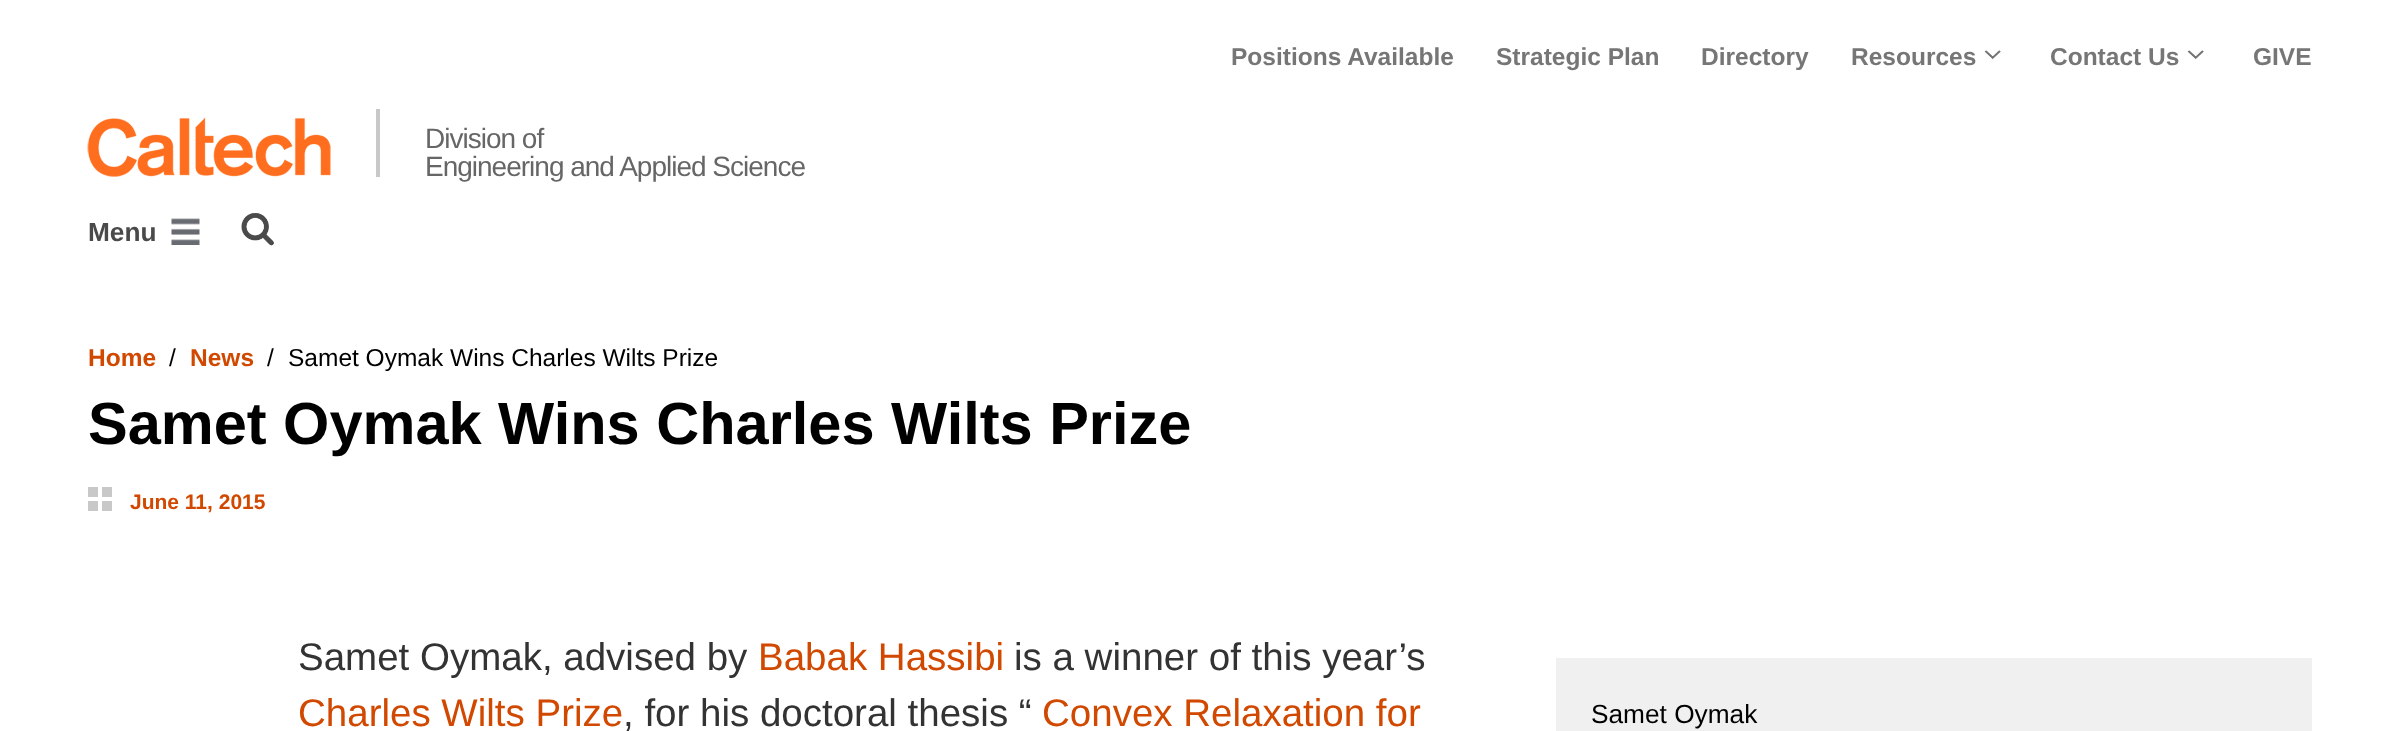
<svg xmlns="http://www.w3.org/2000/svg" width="2398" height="731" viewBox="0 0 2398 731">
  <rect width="100%" height="100%" fill="rgb(255,255,255)"/>
  <g font-family="Liberation Sans" font-size="24.5" font-weight="bold" fill="rgb(118,118,118)">
    <text x="1231" y="65">Positions Available</text>
    <text x="1496" y="65">Strategic Plan</text>
    <text x="1701" y="65">Directory</text>
    <text x="1851" y="65">Resources</text>
  </g>
  <image x="1984" y="50" width="17" height="10" href="pic1.png"/>
  <text x="2050" y="65" font-family="Liberation Sans" font-size="24.5" font-weight="bold" fill="rgb(118,118,118)">Contact Us</text>
  <image x="2187" y="50" width="17" height="10" href="pic1.png"/>
  <text x="2253" y="65" font-family="Liberation Sans" font-size="24.5" font-weight="bold" fill="rgb(118,118,118)">GIVE</text>
  <image x="87" y="117" width="244" height="60" href="pic2.png"/>
  <rect x="376" y="109" width="4" height="68" fill="rgb(200,200,200)"/>
  <g font-family="Liberation Sans" font-size="28" letter-spacing="-1" fill="rgb(102,102,102)">
    <text>
      <tspan x="425" y="148">Division of</tspan>
      <tspan x="425" y="176">Engineering and Applied Science</tspan>
    </text>
  </g>
  <text x="88" y="241" font-family="Liberation Sans" font-size="26.25" font-weight="bold" fill="rgb(74,74,74)">Menu</text>
  <image x="171" y="218" width="29" height="27" href="pic3.png"/>
  <image x="241" y="213" width="33" height="33" href="pic4.png"/>
  <text x="88" y="366" font-family="Liberation Sans" font-size="24.5" font-weight="bold" fill="rgb(209,73,0)">Home</text>
  <text x="169" y="366" font-family="Liberation Sans" font-size="24.5" fill="rgb(0,0,0)">/</text>
  <text x="190" y="366" font-family="Liberation Sans" font-size="24.5" font-weight="bold" fill="rgb(209,73,0)">News</text>
  <g font-family="Liberation Sans" font-size="24.5" fill="rgb(0,0,0)">
    <text x="267" y="366">/</text>
    <text x="288" y="366">Samet Oymak Wins Charles Wilts Prize</text>
  </g>
  <text x="88" y="444" font-family="Liberation Sans" font-size="59.5" font-weight="bold" fill="rgb(0,0,0)">Samet Oymak Wins Charles Wilts Prize</text>
  <rect x="88" y="487" width="10" height="10" fill="rgb(200,200,200)"/>
  <rect x="102" y="487" width="10" height="10" fill="rgb(200,200,200)"/>
  <rect x="88" y="501" width="10" height="10" fill="rgb(200,200,200)"/>
  <rect x="102" y="501" width="10" height="10" fill="rgb(200,200,200)"/>
  <text x="130" y="509" font-family="Liberation Sans" font-size="21" font-weight="bold" fill="rgb(209,73,0)">June 11, 2015</text>
  <text x="298" y="670" font-family="Liberation Sans" font-size="38.5" fill="rgb(51,51,51)">Samet Oymak, advised by</text>
  <text x="758" y="670" font-family="Liberation Sans" font-size="38.5" fill="rgb(209,73,0)">Babak Hassibi</text>
  <text x="1014" y="670" font-family="Liberation Sans" font-size="38.5" fill="rgb(51,51,51)">is a winner of this year’s</text>
  <text x="298" y="726" font-family="Liberation Sans" font-size="38.5" fill="rgb(209,73,0)">Charles Wilts Prize</text>
  <text x="623" y="726" font-family="Liberation Sans" font-size="38.5" fill="rgb(51,51,51)">, for his doctoral thesis “</text>
  <text x="1042" y="726" font-family="Liberation Sans" font-size="38.5" fill="rgb(209,73,0)">Convex Relaxation for</text>
  <rect x="1556" y="658" width="756" height="73" fill="rgb(240,240,240)"/>
  <text x="1591" y="723" font-family="Liberation Sans" font-size="26.25" fill="rgb(0,0,0)">Samet Oymak</text>
</svg>
